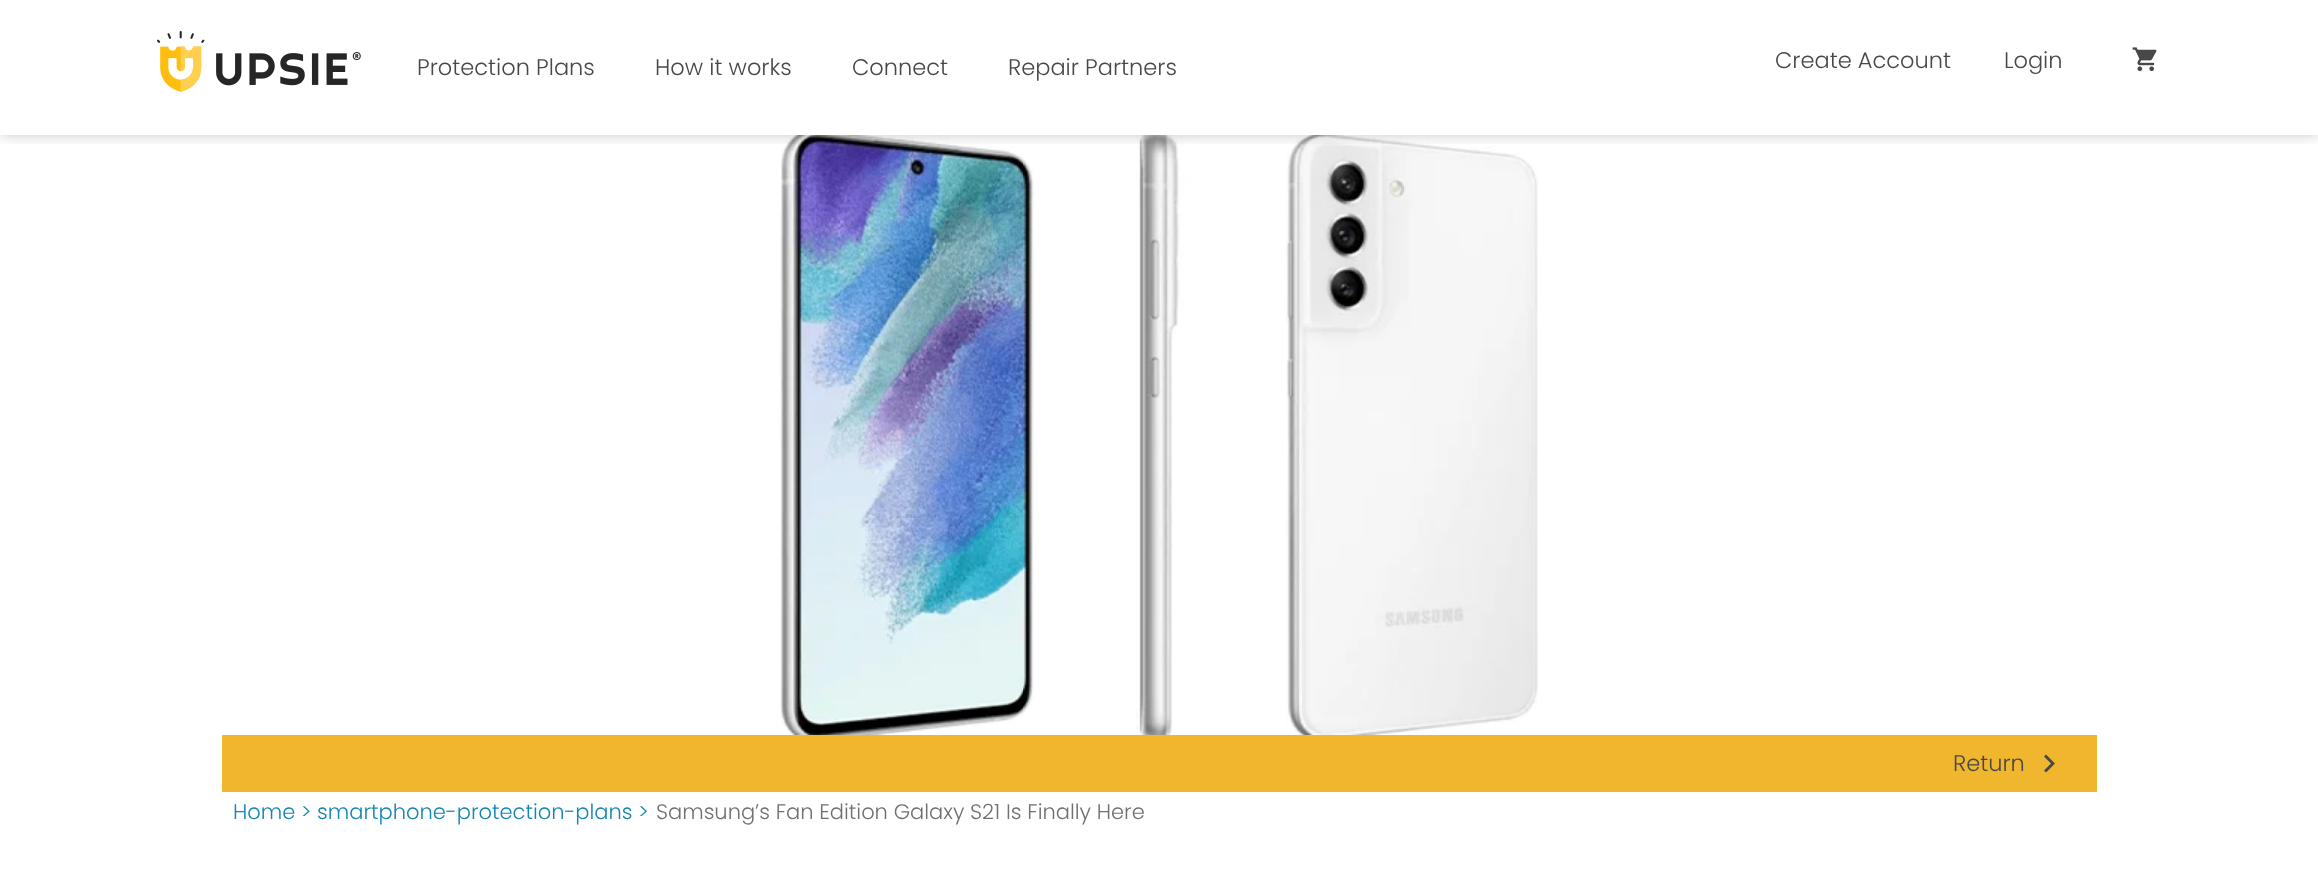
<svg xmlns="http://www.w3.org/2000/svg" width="2318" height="892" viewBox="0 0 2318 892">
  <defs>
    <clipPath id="clip1"><rect x="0" y="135" width="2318" height="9"/></clipPath>
  </defs>
  <rect width="100%" height="100%" fill="rgb(255,255,255)"/>
  <image x="779" y="135" width="759" height="600" href="pic3.png"/>
  <g clip-path="url(#clip1)">
    <rect x="0" y="-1" width="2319" height="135" fill="rgba(0,0,0,0.24)" filter="blur(7.5px)"/>
  </g>
  <image x="157" y="31" width="204" height="61" href="pic1.png"/>
  <g font-family="Poppins" font-size="22.5" font-weight="300" fill="rgb(72,72,72)">
    <text x="417" y="75">Protection Plans</text>
    <text x="655" y="75">How it works</text>
    <text x="852" y="75">Connect</text>
    <text x="1008" y="75">Repair Partners</text>
    <text x="1775" y="68">Create Account</text>
    <text x="2004" y="68">Login</text>
  </g>
  <image x="2132" y="47" width="25" height="25" href="pic2.png"/>
  <rect x="222" y="735" width="1875" height="57" fill="rgb(240,182,45)"/>
  <text x="1953" y="771" font-family="Poppins" font-size="22.5" font-weight="300" fill="rgb(72,72,72)">Return</text>
  <path d="M2046 754.5L2055 763.5L2046 772.5L2044 770.5L2051 763.5L2044 756.5Z" fill="rgb(72,72,72)"/>
  <text x="233" y="819" font-family="Poppins" font-size="21" font-weight="300" fill="rgb(18,133,178)">Home &gt; smartphone-protection-plans &gt;</text>
  <text x="656" y="819" font-family="Poppins" font-size="21" font-weight="300" fill="rgb(112,112,112)">Samsung’s Fan Edition Galaxy S21 Is Finally Here</text>
</svg>
